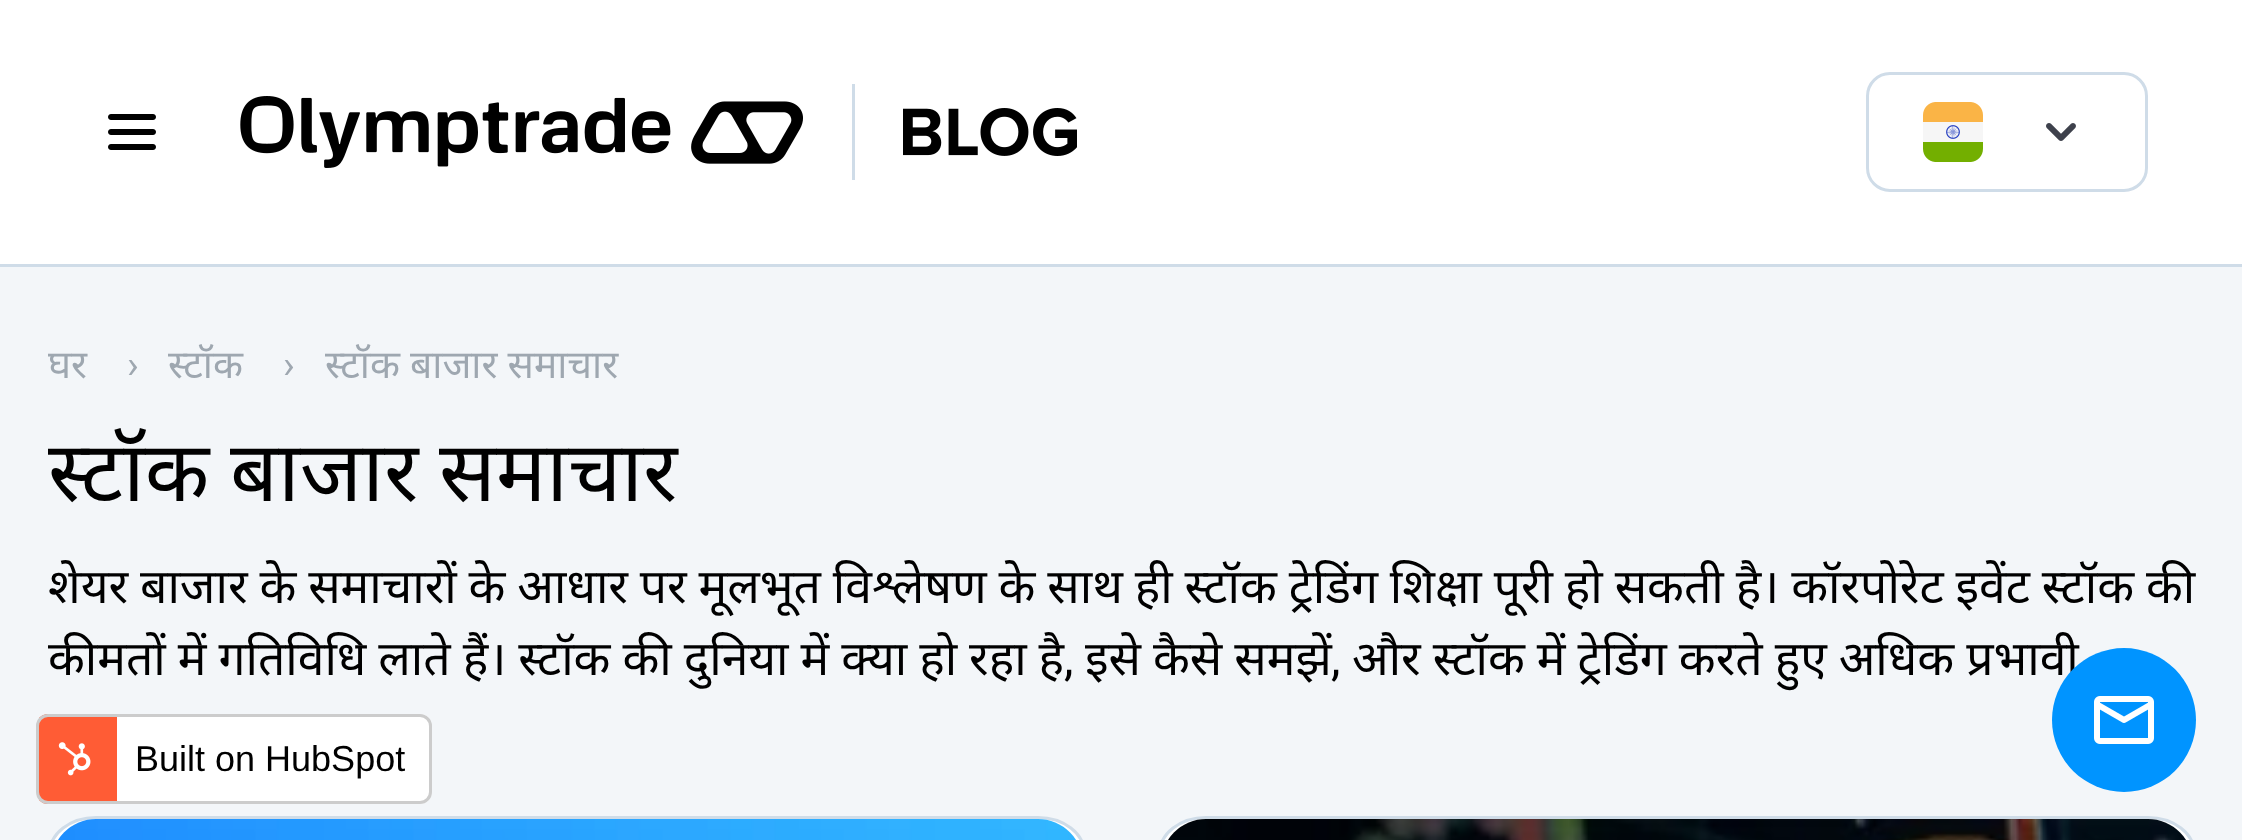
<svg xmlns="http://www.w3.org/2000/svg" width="2242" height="840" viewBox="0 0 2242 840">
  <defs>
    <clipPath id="clip1"><rect x="36" y="714" width="396" height="90" rx="12"/></clipPath>
  </defs>
  <rect width="100%" height="100%" fill="rgb(243,246,249)"/>
  <rect x="0" y="0" width="2242" height="264" fill="rgb(255,255,255)"/>
  <rect x="0" y="264" width="2242" height="3" fill="rgb(207,220,232)"/>
  <image x="108" y="114" width="48" height="36" href="pic1.png"/>
  <image x="240" y="96" width="563" height="72" href="pic2.png"/>
  <rect x="852" y="84" width="3" height="96" fill="rgb(207,220,232)"/>
  <image x="903" y="108" width="174" height="48" href="pic3.png"/>
  <rect x="1867.5" y="73.5" width="279" height="117" rx="22.5" fill="none" stroke="rgb(207,220,232)" stroke-width="3"/>
  <image x="1923" y="102" width="60" height="60" href="pic4.png"/>
  <image x="2046" y="123" width="30" height="18" href="pic5.png"/>
  <text x="48" y="378" font-family="Noto Sans" font-size="39" fill="rgb(158,167,176)">घर</text>
  <text x="127" y="378" font-family="Roboto" font-size="39" fill="rgb(158,167,176)">›</text>
  <text x="168" y="378" font-family="Noto Sans" font-size="39" fill="rgb(158,167,176)">स्टॉक</text>
  <text x="283" y="378" font-family="Roboto" font-size="39" fill="rgb(158,167,176)">›</text>
  <text x="325" y="378" font-family="Noto Sans" font-size="39" fill="rgb(158,167,176)">स्टॉक बाजार समाचार</text>
  <text x="48" y="501" word-spacing="-1" font-family="Noto Sans" font-size="84" fill="rgb(0,0,0)">स्टॉक बाजार समाचार</text>
  <g font-family="Noto Sans" font-size="48" fill="rgb(0,0,0)">
    <text>
      <tspan x="48" y="603" word-spacing="-0.6">शेयर बाजार के समाचारों के आधार पर मूलभूत विश्लेषण के साथ ही स्टॉक ट्रेडिंग शिक्षा पूरी हो सकती है। कॉरपोरेट इवेंट स्टॉक की</tspan>
      <tspan x="48" y="675" word-spacing="-0.5">कीमतों में गतिविधि लाते हैं। स्टॉक की दुनिया में क्या हो रहा है</tspan>
    </text>
  </g>
  <text x="1064" y="675" font-family="Roboto" font-size="48" fill="rgb(0,0,0)">,</text>
  <text x="1085" y="675" word-spacing="-0.5" font-family="Noto Sans" font-size="48" fill="rgb(0,0,0)">इसे कैसे समझें</text>
  <text x="1331" y="675" font-family="Roboto" font-size="48" fill="rgb(0,0,0)">,</text>
  <text x="1352" y="675" word-spacing="-0.5" font-family="Noto Sans" font-size="48" fill="rgb(0,0,0)">और स्टॉक में ट्रेडिंग करते हुए अधिक प्रभावी</text>
  <rect x="49.5" y="817.5" width="1035" height="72" rx="46.5" fill="rgb(255,255,255)" stroke="rgb(207,220,232)" stroke-width="3"/>
  <image x="58" y="819" width="1018" height="21" href="pic6.png"/>
  <rect x="1159.5" y="817.5" width="1035" height="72" rx="46.5" fill="rgb(255,255,255)" stroke="rgb(207,220,232)" stroke-width="3"/>
  <image x="1168" y="819" width="1018" height="21" href="pic7.png"/>
  <circle cx="2124" cy="720" r="72" fill="rgb(0,148,255)"/>
  <image x="2094" y="696" width="60" height="48" href="pic8.png"/>
  <g clip-path="url(#clip1)">
    <rect x="39" y="714" width="78" height="90" fill="rgb(255,92,53)"/>
    <rect x="117" y="714" width="312" height="90" fill="rgb(255,255,255)"/>
  </g>
  <rect x="37.5" y="715.5" width="393" height="87" rx="10.5" fill="none" stroke="rgb(204,204,204)" stroke-width="3"/>
  <image x="58" y="742" width="33" height="34" href="pic9.png"/>
  <text x="135" y="771" font-family="Liberation Sans" font-size="36" fill="rgb(0,0,0)">Built on HubSpot</text>
</svg>
